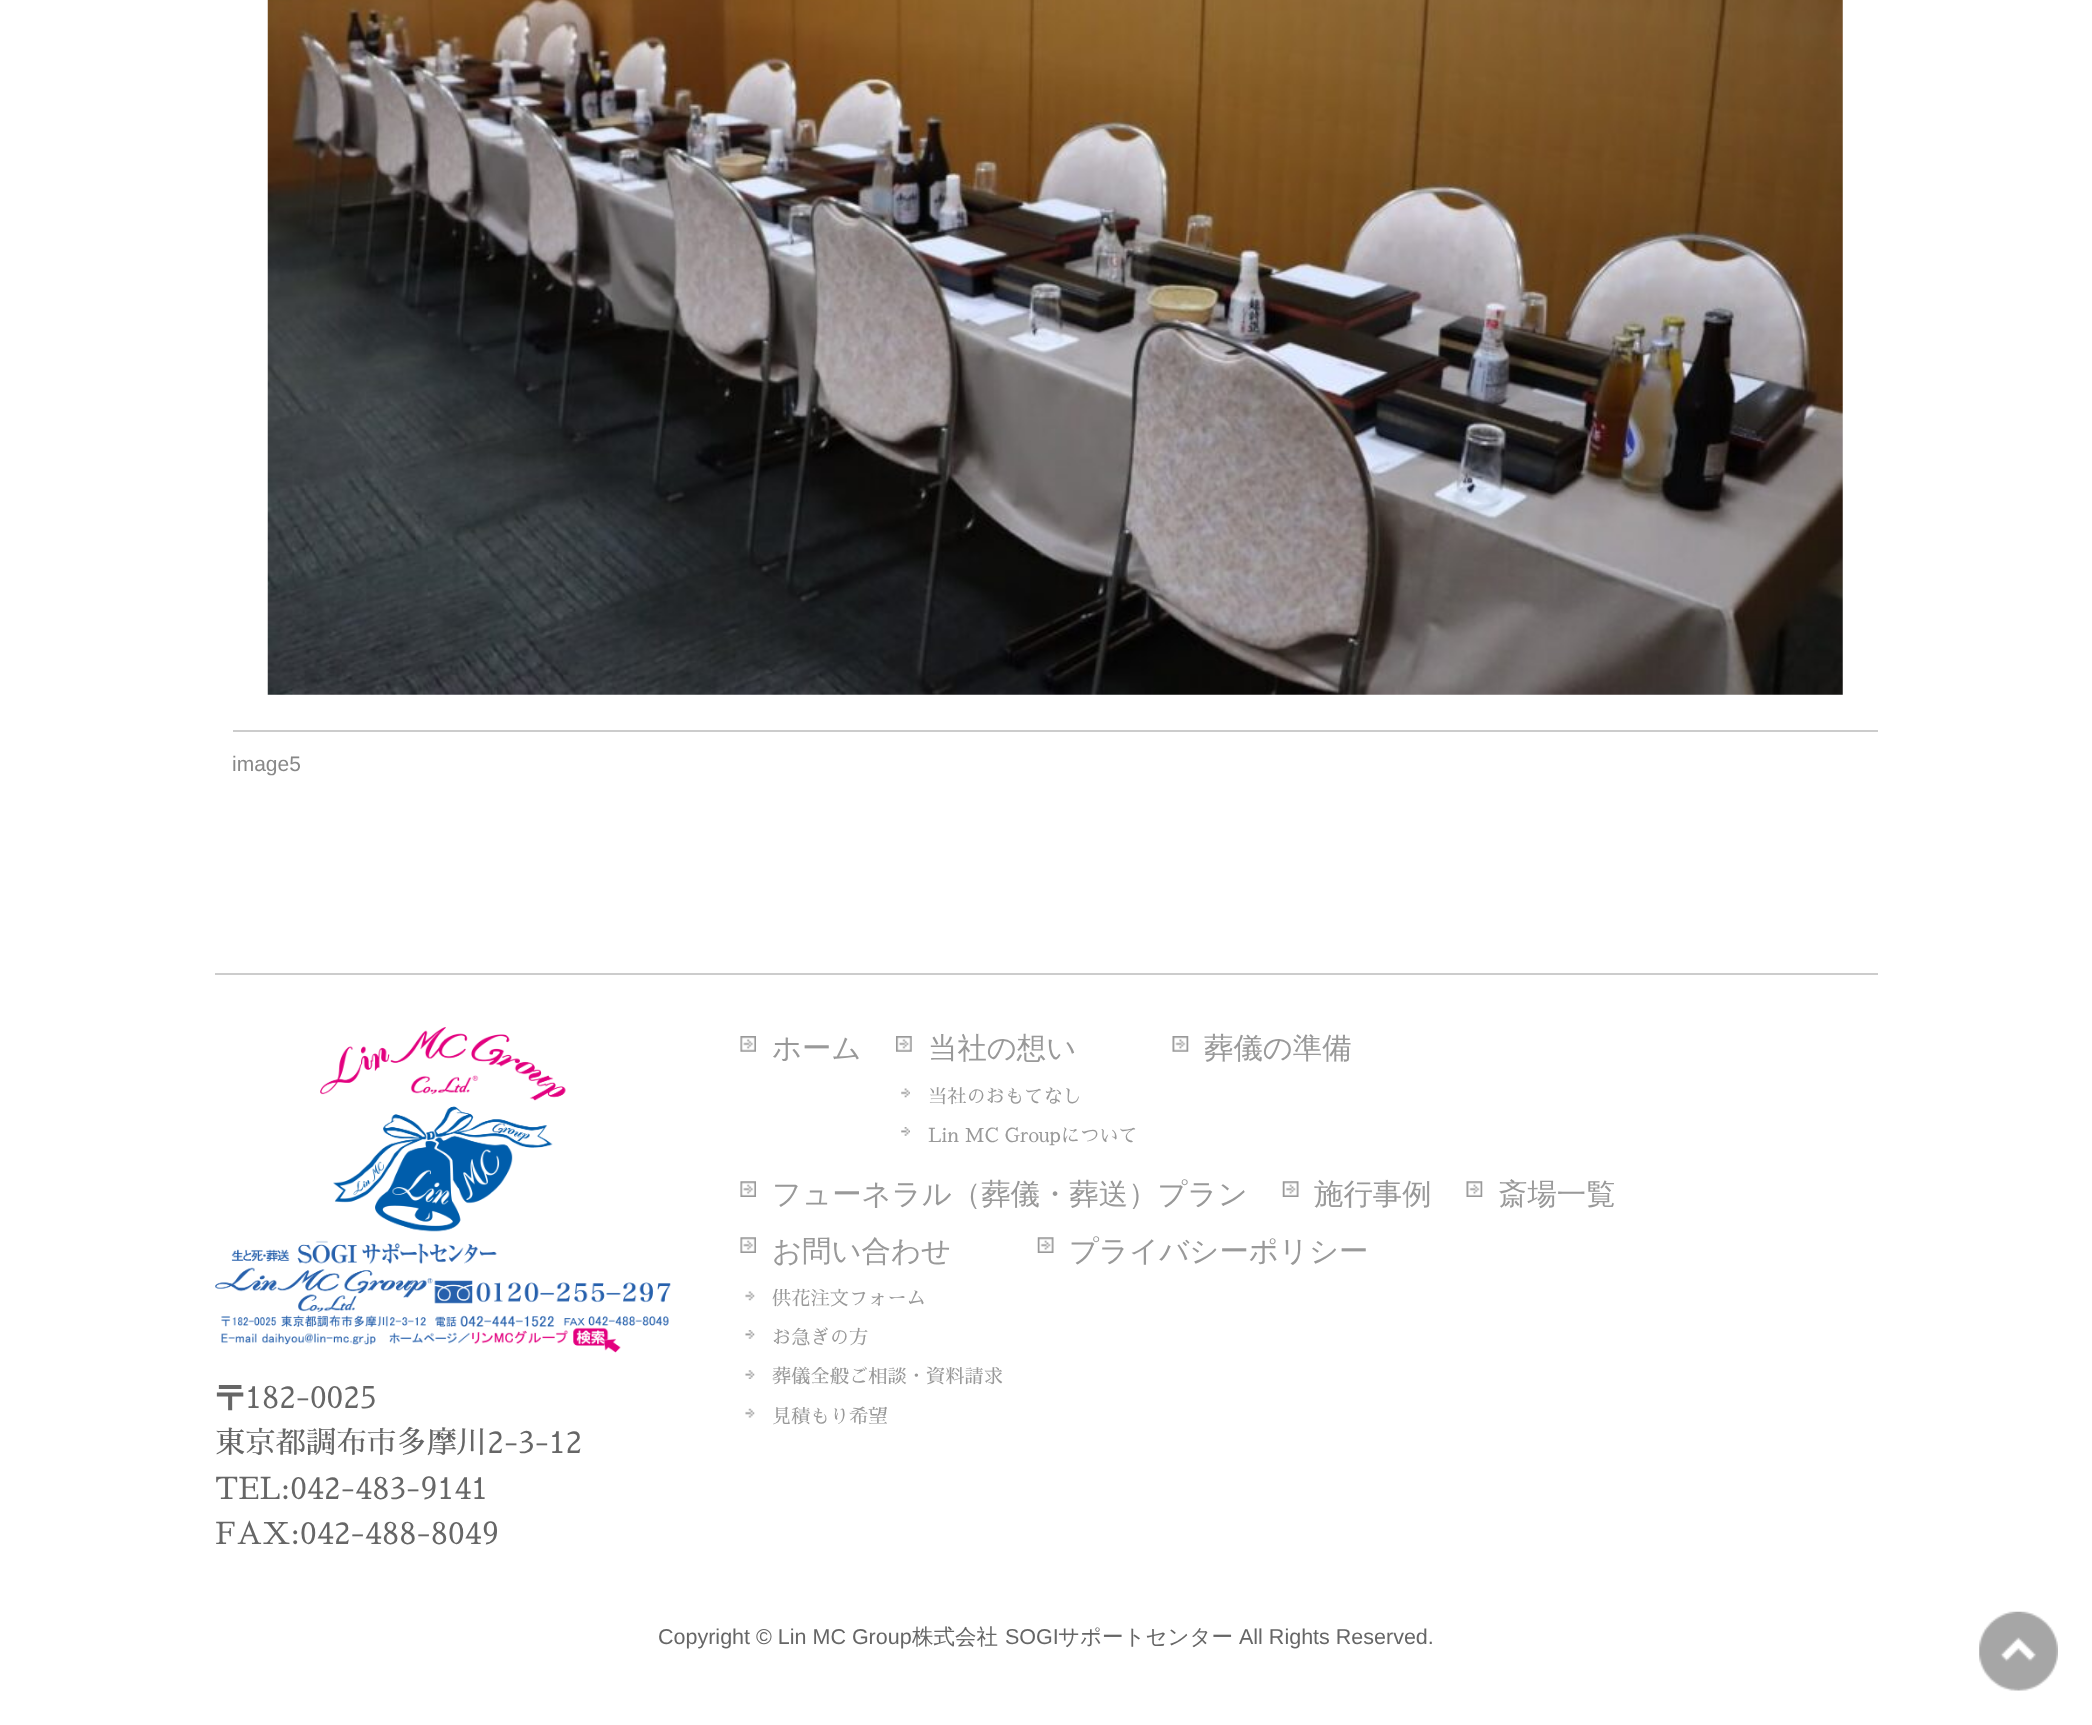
<svg xmlns="http://www.w3.org/2000/svg" width="2092" height="1725" viewBox="0 0 2092 1725">
  <rect width="100%" height="100%" fill="rgb(255,255,255)"/>
  <image x="267" y="0" width="1576" height="695" href="pic1.png"/>
  <rect x="233" y="730" width="1645" height="2" fill="rgb(204,204,204)"/>
  <text x="232" y="771" font-family="Liberation Sans" font-size="21" fill="rgb(136,136,136)">image5</text>
  <rect x="215" y="973" width="1663" height="2" fill="rgb(204,204,204)"/>
  <image x="740" y="1036" width="16" height="16" href="pic2.png"/>
  <text x="772" y="1058" font-family="WenQuanYi Zen Hei" font-size="29.4" font-weight="500" fill="rgb(153,153,153)">ホーム</text>
  <image x="896" y="1036" width="16" height="16" href="pic3.png"/>
  <text x="928" y="1058" font-family="WenQuanYi Zen Hei" font-size="29.4" font-weight="500" fill="rgb(153,153,153)">当社の想い</text>
  <image x="901" y="1088" width="9" height="10" href="pic4.png"/>
  <text x="928" y="1103" font-family="Sawarabi Mincho" font-size="19.25" fill="rgb(153,153,153)">当社のおもてなし</text>
  <image x="901" y="1127" width="9" height="9" href="pic5.png"/>
  <text x="928" y="1142" font-family="Sawarabi Mincho" font-size="19.25" fill="rgb(153,153,153)">Lin MC Groupについて</text>
  <image x="1172" y="1036" width="17" height="16" href="pic6.png"/>
  <text x="1204" y="1058" font-family="WenQuanYi Zen Hei" font-size="29.4" font-weight="500" fill="rgb(153,153,153)">葬儀の準備</text>
  <image x="740" y="1181" width="16" height="16" href="pic7.png"/>
  <text x="772" y="1204" font-family="WenQuanYi Zen Hei" font-size="29.4" font-weight="500" fill="rgb(153,153,153)">フューネラル（葬儀・葬送）プラン</text>
  <image x="1282" y="1181" width="17" height="16" href="pic8.png"/>
  <text x="1314" y="1204" font-family="WenQuanYi Zen Hei" font-size="29.4" font-weight="500" fill="rgb(153,153,153)">施行事例</text>
  <image x="1466" y="1181" width="17" height="16" href="pic9.png"/>
  <text x="1498" y="1204" font-family="WenQuanYi Zen Hei" font-size="29.4" font-weight="500" fill="rgb(153,153,153)">斎場一覧</text>
  <image x="740" y="1237" width="16" height="16" href="pic7.png"/>
  <text x="772" y="1261" font-family="WenQuanYi Zen Hei" font-size="29.4" font-weight="500" fill="rgb(153,153,153)">お問い合わせ</text>
  <image x="745" y="1291" width="10" height="10" href="pic10.png"/>
  <text x="772" y="1305" font-family="Sawarabi Mincho" font-size="19.25" fill="rgb(153,153,153)">供花注文フォーム</text>
  <image x="745" y="1330" width="10" height="9" href="pic11.png"/>
  <text x="772" y="1344" font-family="Sawarabi Mincho" font-size="19.25" fill="rgb(153,153,153)">お急ぎの方</text>
  <image x="745" y="1370" width="10" height="9" href="pic12.png"/>
  <text x="772" y="1383" font-family="Sawarabi Mincho" font-size="19.25" fill="rgb(153,153,153)">葬儀全般ご相談・資料請求</text>
  <image x="745" y="1408" width="10" height="10" href="pic13.png"/>
  <text x="772" y="1423" font-family="Sawarabi Mincho" font-size="19.25" fill="rgb(153,153,153)">見積もり希望</text>
  <image x="1037" y="1237" width="17" height="16" href="pic14.png"/>
  <text x="1069" y="1261" font-family="WenQuanYi Zen Hei" font-size="29.4" font-weight="500" fill="rgb(153,153,153)">プライバシーポリシー</text>
  <image x="215" y="1027" width="456" height="326" href="pic15.png"/>
  <g font-family="Sawarabi Mincho" font-size="30.25" fill="rgb(102,102,102)">
    <text>
      <tspan x="215" y="1408">〒182-0025</tspan>
      <tspan x="215" y="1453">東京都調布市多摩川2-3-12</tspan>
      <tspan x="215" y="1499">TEL:042-483-9141</tspan>
      <tspan x="215" y="1544">FAX:042-488-8049</tspan>
    </text>
  </g>
  <text x="658" y="1644" font-family="Liberation Sans" font-size="21.5" fill="rgb(102,102,102)">Copyright © Lin MC Group</text>
  <text x="912" y="1644" font-family="WenQuanYi Zen Hei" font-size="21.5" font-weight="500" fill="rgb(102,102,102)">株式会社</text>
  <text x="1005" y="1644" font-family="Liberation Sans" font-size="21.5" fill="rgb(102,102,102)">SOGI</text>
  <text x="1058" y="1644" font-family="WenQuanYi Zen Hei" font-size="21.5" font-weight="500" fill="rgb(102,102,102)">サポートセンター</text>
  <text x="1239" y="1644" font-family="Liberation Sans" font-size="21.5" fill="rgb(102,102,102)">All Rights Reserved.</text>
  <image x="1979" y="1611" width="79" height="80" href="pic16.png"/>
</svg>
